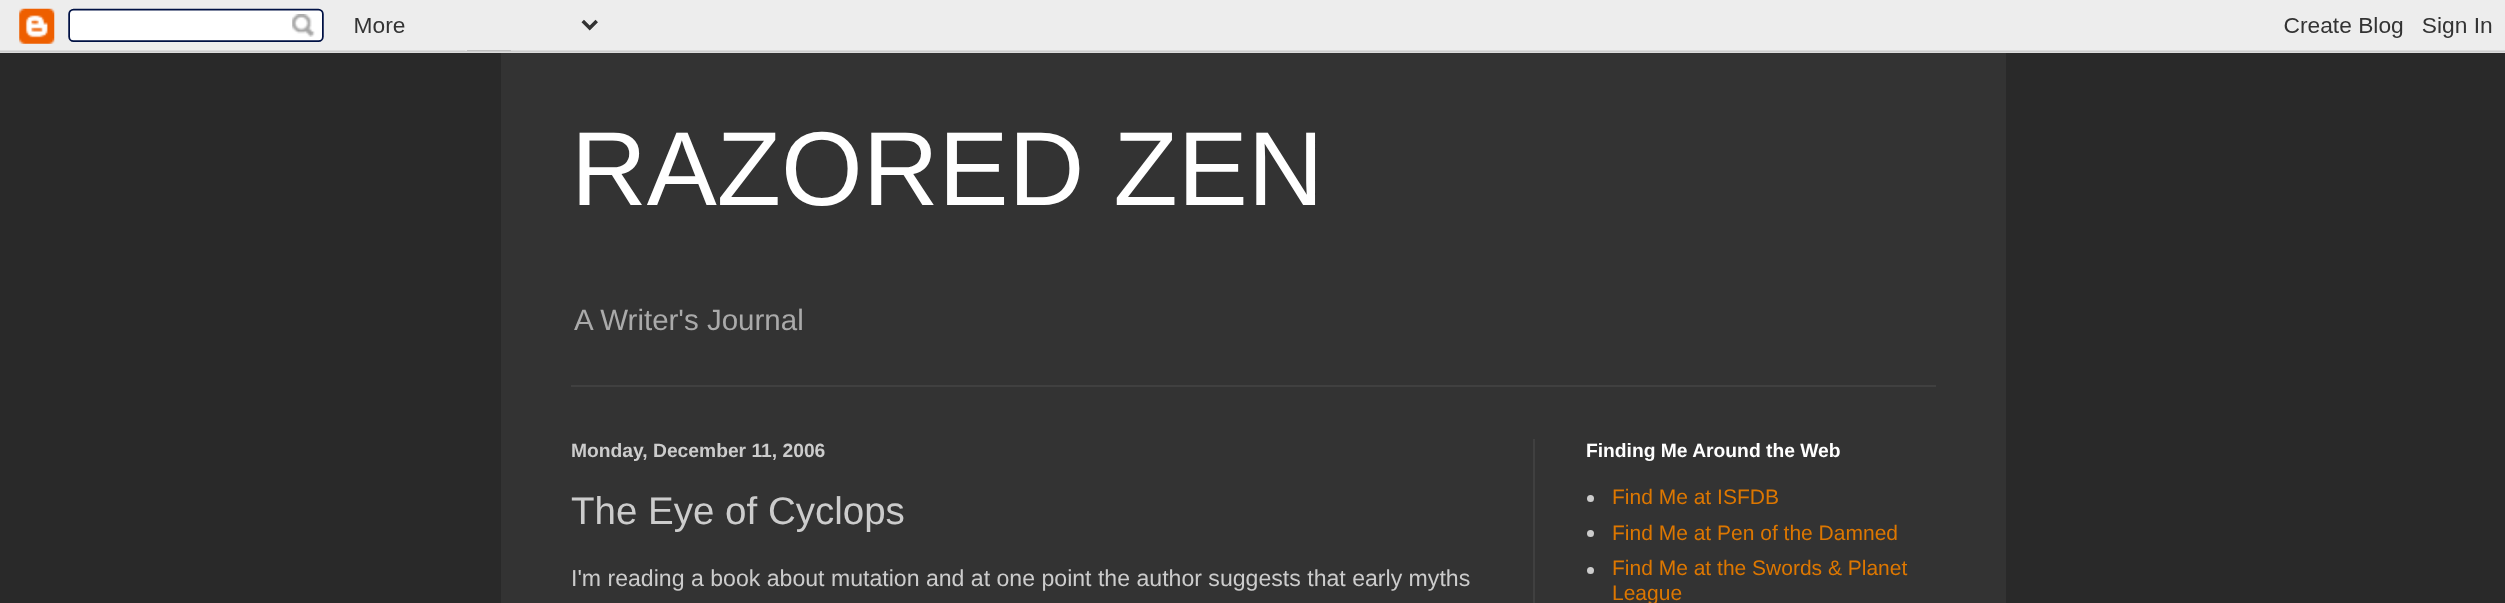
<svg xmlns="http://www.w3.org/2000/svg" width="2505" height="603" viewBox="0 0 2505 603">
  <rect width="100%" height="100%" fill="rgb(41,41,41)"/>
  <image x="0" y="0" width="2505" height="53" href="pic1.png"/>
  <rect x="501" y="53" width="1505" height="550" fill="rgb(51,51,51)"/>
  <text x="571" y="205" font-family="Liberation Sans" font-size="105" fill="rgb(255,255,255)">RAZORED ZEN</text>
  <text x="574" y="330" font-family="Liberation Sans" font-size="29.5" fill="rgb(170,170,170)">A Writer's Journal</text>
  <rect x="571" y="385" width="1365" height="2" fill="rgb(64,64,64)"/>
  <rect x="1533" y="439" width="2" height="164" fill="rgb(64,64,64)"/>
  <text x="571" y="457" font-family="Liberation Sans" font-size="19.25" font-weight="bold" fill="rgb(204,204,204)">Monday, December 11, 2006</text>
  <text x="571" y="524" font-family="Liberation Sans" font-size="38.5" fill="rgb(204,204,204)">The Eye of Cyclops</text>
  <text x="571" y="586" font-family="Liberation Sans" font-size="23.1" fill="rgb(204,204,204)">I'm reading a book about mutation and at one point the author suggests that early myths</text>
  <text x="1586" y="457" font-family="Liberation Sans" font-size="19.25" font-weight="bold" fill="rgb(255,255,255)">Finding Me Around the Web</text>
  <circle cx="1590.5" cy="498.5" r="3.5" fill="rgb(204,204,204)"/>
  <text x="1612" y="504" font-family="Liberation Sans" font-size="21" fill="rgb(221,119,0)">Find Me at ISFDB</text>
  <circle cx="1590.5" cy="533.5" r="3.5" fill="rgb(204,204,204)"/>
  <text x="1612" y="540" font-family="Liberation Sans" font-size="21" fill="rgb(221,119,0)">Find Me at Pen of the Damned</text>
  <circle cx="1590.5" cy="570.5" r="3.5" fill="rgb(204,204,204)"/>
  <g font-family="Liberation Sans" font-size="21" fill="rgb(221,119,0)">
    <text>
      <tspan x="1612" y="575">Find Me at the Swords &amp; Planet</tspan>
      <tspan x="1612" y="600">League</tspan>
    </text>
  </g>
</svg>
